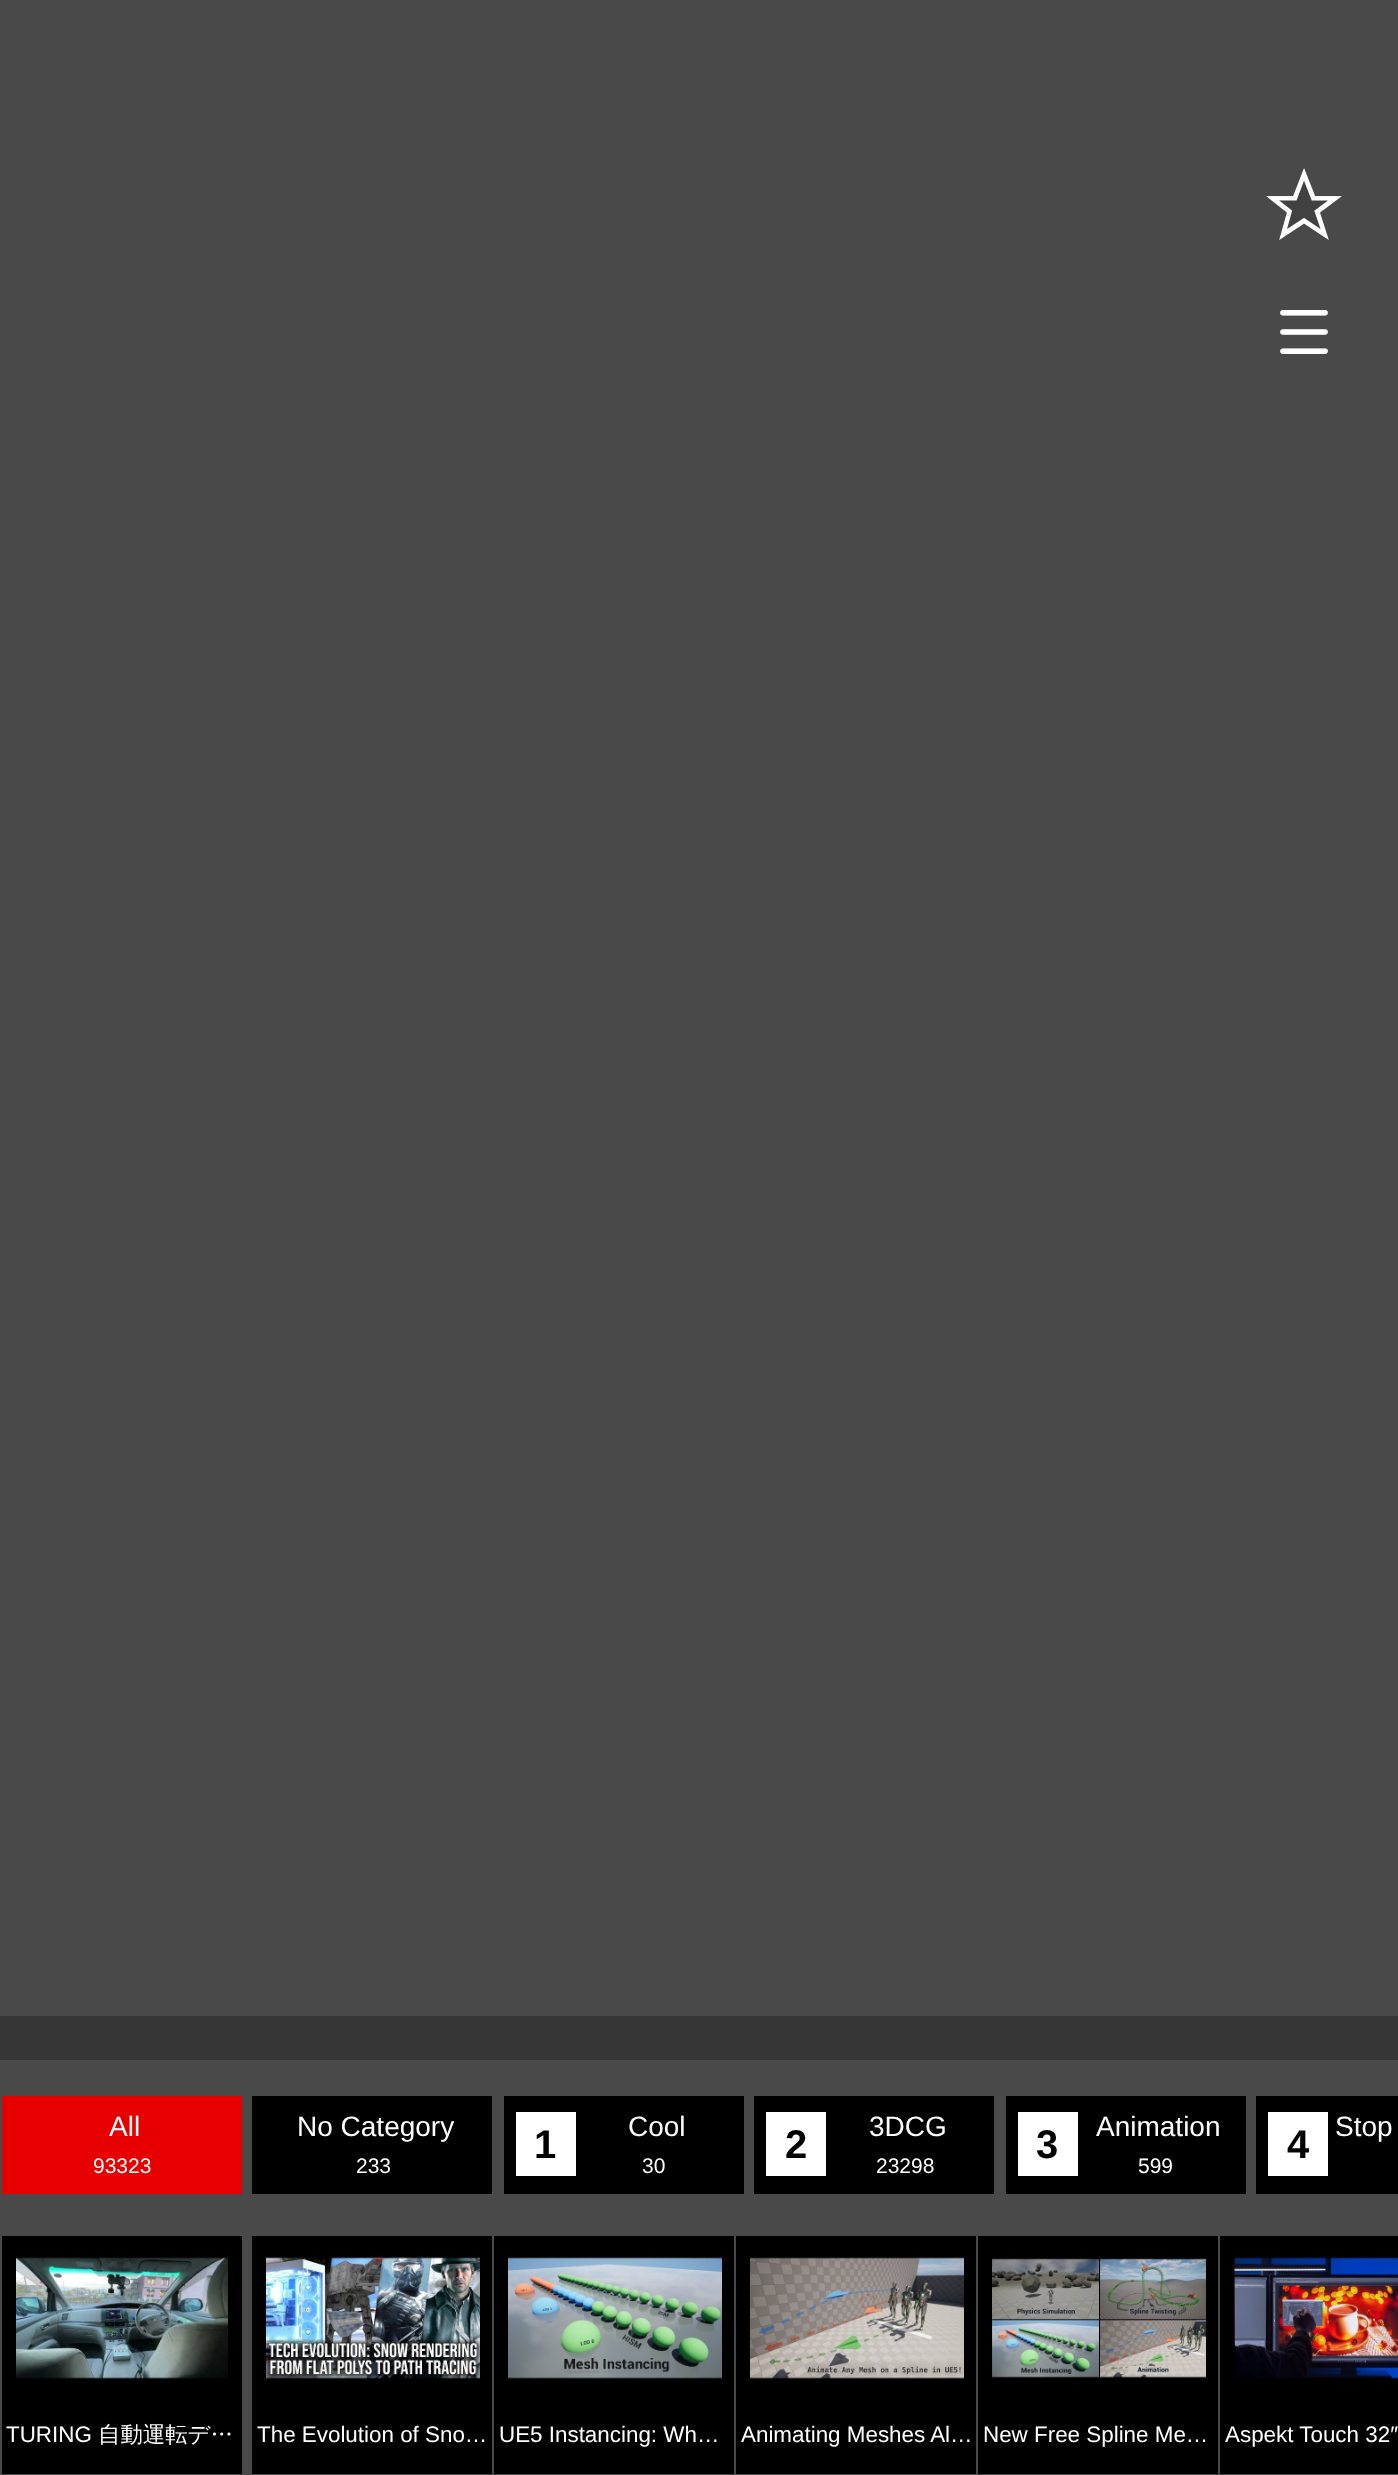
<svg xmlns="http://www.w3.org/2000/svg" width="1398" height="2475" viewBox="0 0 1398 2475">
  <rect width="100%" height="100%" fill="rgb(73,73,73)"/>
  <image x="1266" y="168" width="76" height="72" href="pic1.png"/>
  <image x="1280" y="310" width="48" height="44" href="pic2.png"/>
  <rect x="0" y="2016" width="1398" height="44" fill="rgb(54,54,54)"/>
  <rect x="2" y="2096" width="240" height="98" fill="rgb(231,0,0)"/>
  <text x="109" y="2136" font-family="Liberation Sans" font-size="28" fill="rgb(255,255,255)">All</text>
  <text x="93" y="2173" font-family="Liberation Sans" font-size="21" fill="rgb(255,255,255)">93323</text>
  <rect x="252" y="2096" width="240" height="98" fill="rgb(0,0,0)"/>
  <text x="297" y="2136" font-family="Liberation Sans" font-size="28" fill="rgb(255,255,255)">No Category</text>
  <text x="356" y="2173" font-family="Liberation Sans" font-size="21" fill="rgb(255,255,255)">233</text>
  <rect x="504" y="2096" width="240" height="98" fill="rgb(0,0,0)"/>
  <text x="628" y="2136" font-family="Liberation Sans" font-size="28" fill="rgb(255,255,255)">Cool</text>
  <rect x="516" y="2112" width="60" height="64" fill="rgb(255,255,255)"/>
  <text x="534" y="2158" font-family="Liberation Sans" font-size="40" font-weight="bold" letter-spacing="-3" fill="rgb(0,0,0)">1</text>
  <text x="642" y="2173" font-family="Liberation Sans" font-size="21" fill="rgb(255,255,255)">30</text>
  <rect x="754" y="2096" width="240" height="98" fill="rgb(0,0,0)"/>
  <text x="869" y="2136" font-family="Liberation Sans" font-size="28" fill="rgb(255,255,255)">3DCG</text>
  <rect x="766" y="2112" width="60" height="64" fill="rgb(255,255,255)"/>
  <text x="785" y="2158" font-family="Liberation Sans" font-size="40" font-weight="bold" letter-spacing="-3" fill="rgb(0,0,0)">2</text>
  <text x="876" y="2173" font-family="Liberation Sans" font-size="21" fill="rgb(255,255,255)">23298</text>
  <rect x="1006" y="2096" width="240" height="98" fill="rgb(0,0,0)"/>
  <text x="1096" y="2136" font-family="Liberation Sans" font-size="28" fill="rgb(255,255,255)">Animation</text>
  <rect x="1018" y="2112" width="60" height="64" fill="rgb(255,255,255)"/>
  <text x="1036" y="2158" font-family="Liberation Sans" font-size="40" font-weight="bold" letter-spacing="-3" fill="rgb(0,0,0)">3</text>
  <text x="1138" y="2173" font-family="Liberation Sans" font-size="21" fill="rgb(255,255,255)">599</text>
  <rect x="1256" y="2096" width="142" height="98" fill="rgb(0,0,0)"/>
  <rect x="1268" y="2112" width="60" height="64" fill="rgb(255,255,255)"/>
  <text x="1287" y="2158" font-family="Liberation Sans" font-size="40" font-weight="bold" letter-spacing="-3" fill="rgb(0,0,0)">4</text>
  <text x="1335" y="2136" font-family="Liberation Sans" font-size="28" fill="rgb(255,255,255)">Stop</text>
  <rect x="2" y="2236" width="240" height="238" fill="rgb(0,0,0)"/>
  <image x="16" y="2257" width="212" height="123" href="pic3.png"/>
  <text x="6" y="2442" font-family="Liberation Sans" font-size="22.4" fill="rgb(255,255,255)">TURING</text>
  <text x="98" y="2442" font-family="WenQuanYi Zen Hei" font-size="22.4" font-weight="500" fill="rgb(255,255,255)">自動運転デ…</text>
  <rect x="252" y="2236" width="240" height="238" fill="rgb(0,0,0)"/>
  <image x="266" y="2253" width="214" height="127" href="pic4.png"/>
  <text x="257" y="2442" font-family="Liberation Sans" font-size="22.4" fill="rgb(255,255,255)">The Evolution of Sno…</text>
  <rect x="494" y="2236" width="240" height="238" fill="rgb(0,0,0)"/>
  <image x="508" y="2257" width="214" height="122" href="pic5.png"/>
  <text x="499" y="2442" font-family="Liberation Sans" font-size="22.4" fill="rgb(255,255,255)">UE5 Instancing: Wh…</text>
  <rect x="736" y="2236" width="240" height="238" fill="rgb(0,0,0)"/>
  <image x="750" y="2256" width="214" height="123" href="pic6.png"/>
  <text x="741" y="2442" font-family="Liberation Sans" font-size="22.4" fill="rgb(255,255,255)">Animating Meshes Al…</text>
  <rect x="978" y="2236" width="240" height="238" fill="rgb(0,0,0)"/>
  <image x="992" y="2258" width="214" height="120" href="pic7.png"/>
  <text x="983" y="2442" font-family="Liberation Sans" font-size="22.4" fill="rgb(255,255,255)">New Free Spline Me…</text>
  <rect x="1220" y="2236" width="178" height="238" fill="rgb(0,0,0)"/>
  <image x="1234" y="2252" width="164" height="128" href="pic8.png"/>
  <text x="1225" y="2442" font-family="Liberation Sans" font-size="22.4" fill="rgb(255,255,255)">Aspekt Touch 32″</text>
</svg>
